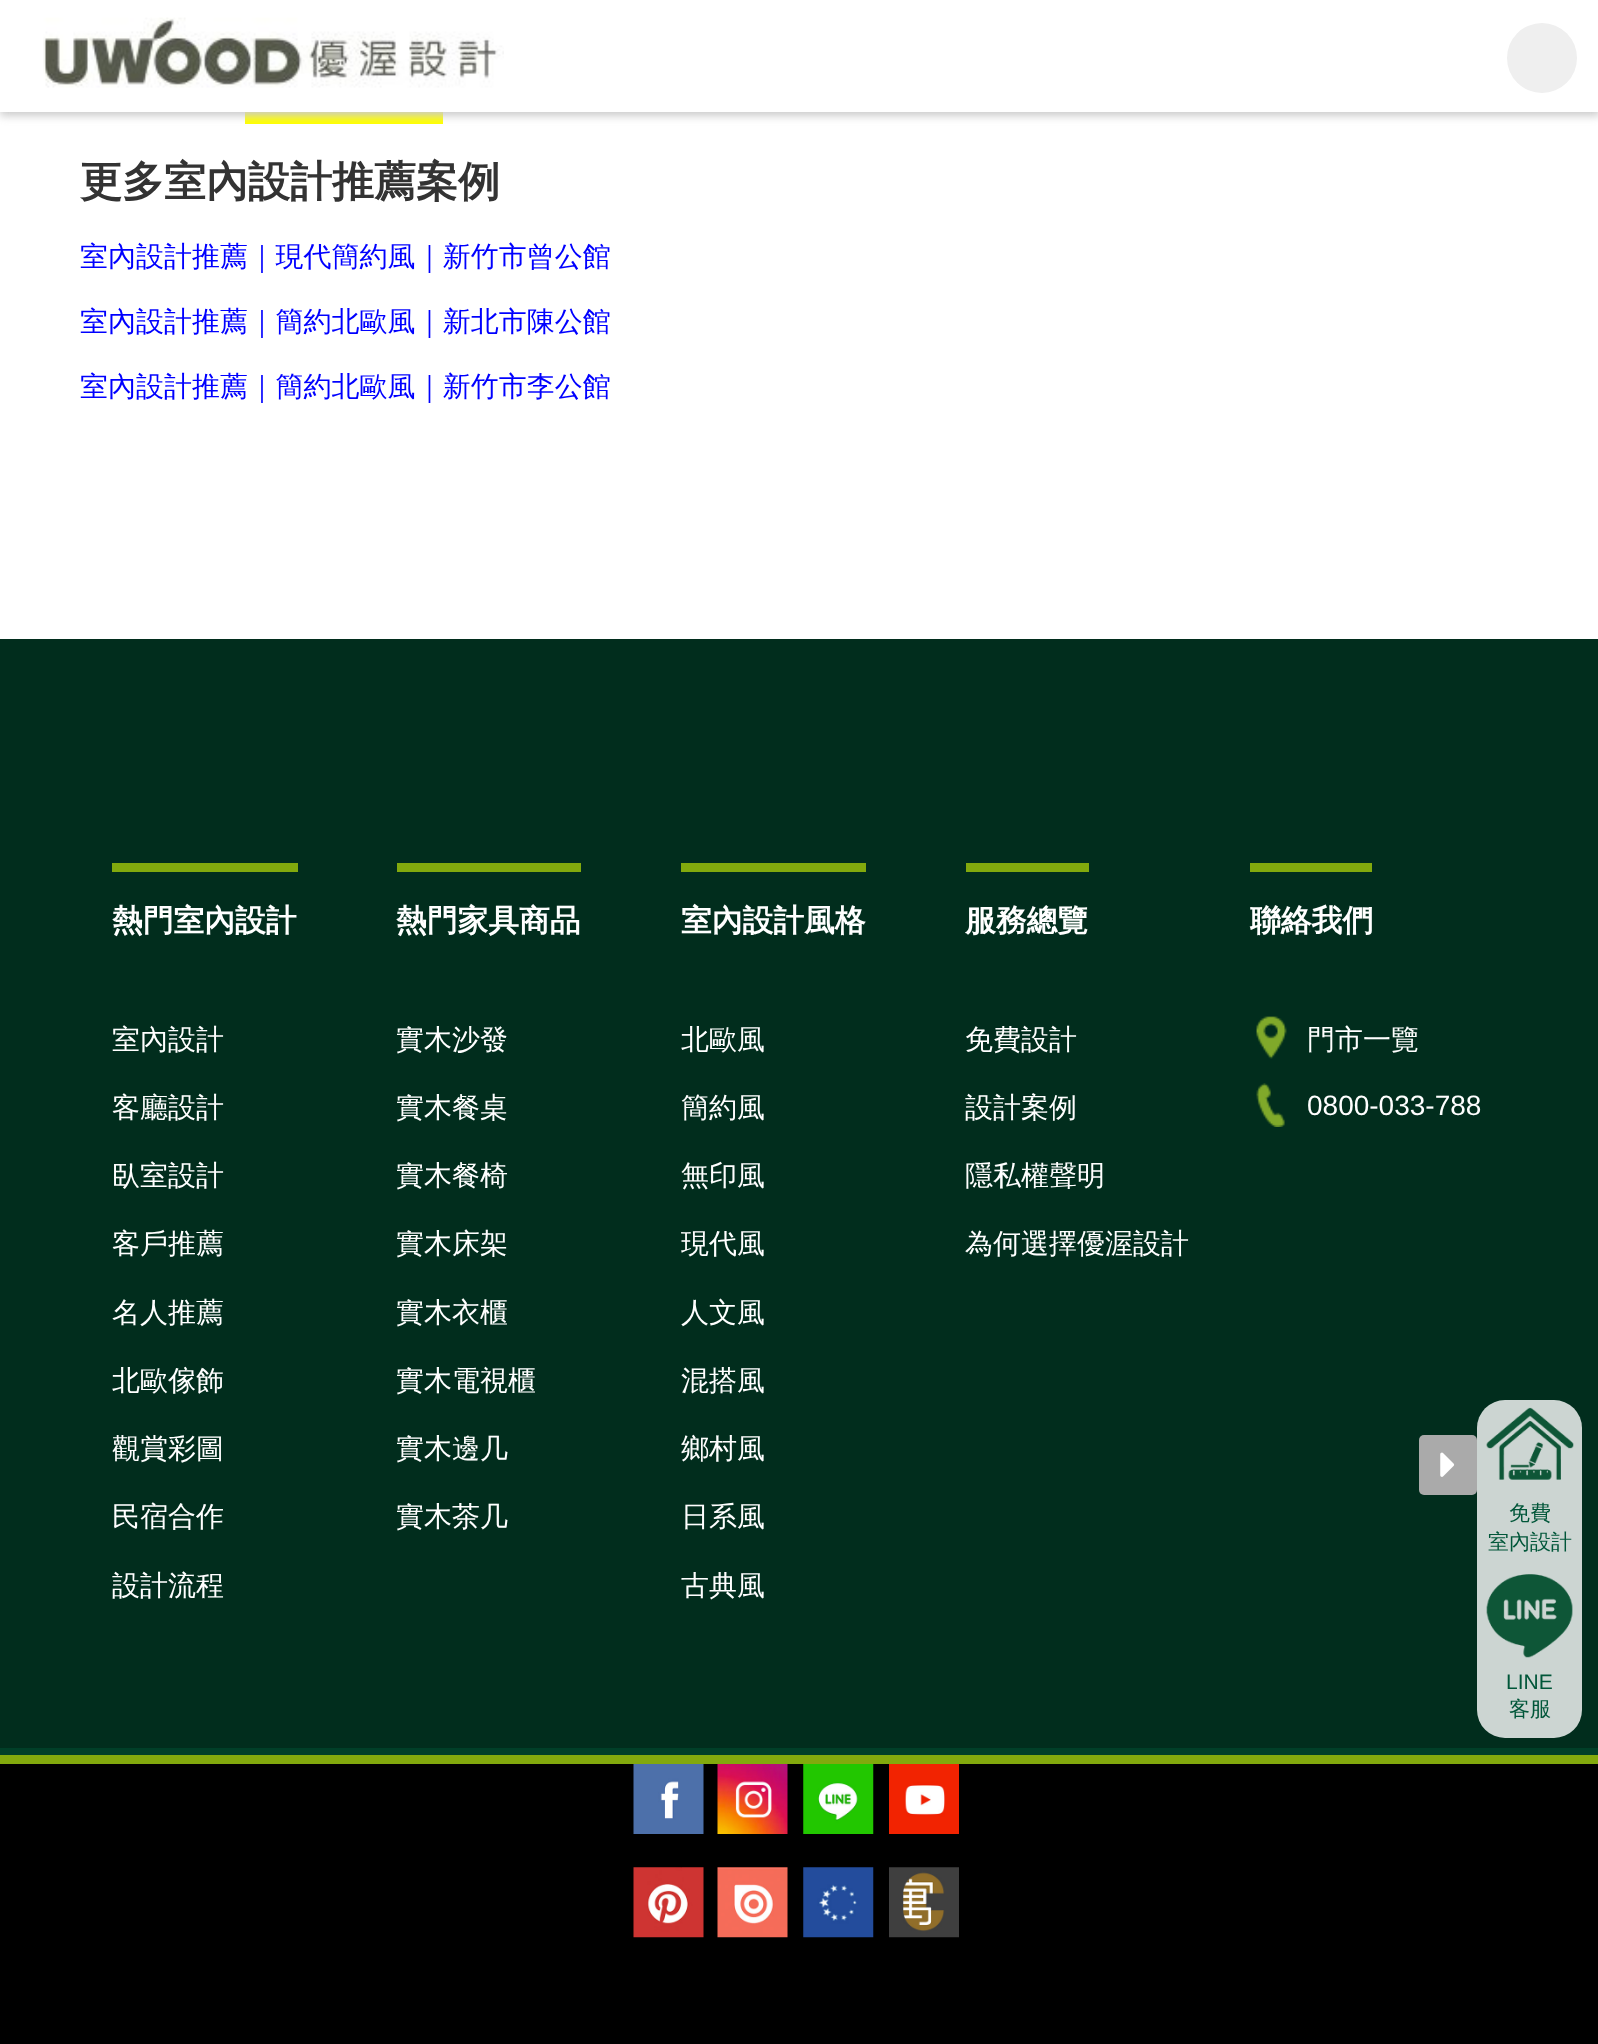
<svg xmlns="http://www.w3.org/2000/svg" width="1598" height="2044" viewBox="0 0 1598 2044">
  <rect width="100%" height="100%" fill="rgb(255,255,255)"/>
  <rect x="245" y="112" width="198" height="12" fill="rgb(255,255,0)"/>
  <rect x="0" y="4" width="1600" height="112" fill="rgb(204,204,204)" filter="blur(4.5px)"/>
  <rect x="0" y="0" width="1598" height="112" fill="rgb(255,255,255)"/>
  <image x="43" y="17" width="461" height="71" href="pic1.png"/>
  <circle cx="1542" cy="58" r="35" fill="rgb(239,239,239)"/>
  <text x="80" y="196" font-family="WenQuanYi Zen Hei" font-size="42" font-weight="bold" fill="rgb(51,51,51)">更多室內設計推薦案例</text>
  <g font-family="WenQuanYi Zen Hei" font-size="28" font-weight="500" fill="rgb(0,0,255)">
    <text x="80" y="266">室內設計推薦｜現代簡約風｜新竹市曾公館</text>
    <text x="80" y="331">室內設計推薦｜簡約北歐風｜新北市陳公館</text>
    <text x="80" y="396">室內設計推薦｜簡約北歐風｜新竹市李公館</text>
  </g>
  <rect x="0" y="1748" width="1598" height="7" fill="rgb(0,63,40)"/>
  <rect x="0" y="639" width="1598" height="1109" fill="rgb(1,45,29)"/>
  <rect x="112" y="863" width="186" height="9" fill="rgb(130,169,13)"/>
  <text x="112" y="931" font-family="WenQuanYi Zen Hei" font-size="30.75" font-weight="bold" fill="rgb(255,255,255)">熱門室內設計</text>
  <g font-family="WenQuanYi Zen Hei" font-size="28" font-weight="500" fill="rgb(255,255,255)">
    <text x="112" y="1049">室內設計</text>
    <text x="112" y="1117">客廳設計</text>
    <text x="112" y="1185">臥室設計</text>
    <text x="112" y="1253">客戶推薦</text>
    <text x="112" y="1322">名人推薦</text>
    <text x="112" y="1390">北歐傢飾</text>
    <text x="112" y="1458">觀賞彩圖</text>
    <text x="112" y="1526">民宿合作</text>
    <text x="112" y="1595">設計流程</text>
  </g>
  <rect x="397" y="863" width="184" height="9" fill="rgb(130,169,13)"/>
  <text x="396" y="931" font-family="WenQuanYi Zen Hei" font-size="30.75" font-weight="bold" fill="rgb(255,255,255)">熱門家具商品</text>
  <g font-family="WenQuanYi Zen Hei" font-size="28" font-weight="500" fill="rgb(255,255,255)">
    <text x="396" y="1049">實木沙發</text>
    <text x="396" y="1117">實木餐桌</text>
    <text x="396" y="1185">實木餐椅</text>
    <text x="396" y="1253">實木床架</text>
    <text x="396" y="1322">實木衣櫃</text>
    <text x="396" y="1390">實木電視櫃</text>
    <text x="396" y="1458">實木邊几</text>
    <text x="396" y="1526">實木茶几</text>
  </g>
  <rect x="681" y="863" width="185" height="9" fill="rgb(130,169,13)"/>
  <text x="681" y="931" font-family="WenQuanYi Zen Hei" font-size="30.75" font-weight="bold" fill="rgb(255,255,255)">室內設計風格</text>
  <g font-family="WenQuanYi Zen Hei" font-size="28" font-weight="500" fill="rgb(255,255,255)">
    <text x="681" y="1049">北歐風</text>
    <text x="681" y="1117">簡約風</text>
    <text x="681" y="1185">無印風</text>
    <text x="681" y="1253">現代風</text>
    <text x="681" y="1322">人文風</text>
    <text x="681" y="1390">混搭風</text>
    <text x="681" y="1458">鄉村風</text>
    <text x="681" y="1526">日系風</text>
    <text x="681" y="1595">古典風</text>
  </g>
  <rect x="966" y="863" width="123" height="9" fill="rgb(130,169,13)"/>
  <text x="965" y="931" font-family="WenQuanYi Zen Hei" font-size="30.75" font-weight="bold" fill="rgb(255,255,255)">服務總覽</text>
  <g font-family="WenQuanYi Zen Hei" font-size="28" font-weight="500" fill="rgb(255,255,255)">
    <text x="965" y="1049">免費設計</text>
    <text x="965" y="1117">設計案例</text>
    <text x="965" y="1185">隱私權聲明</text>
    <text x="965" y="1253">為何選擇優渥設計</text>
  </g>
  <rect x="1250" y="863" width="122" height="9" fill="rgb(130,169,13)"/>
  <text x="1250" y="931" font-family="WenQuanYi Zen Hei" font-size="30.75" font-weight="bold" fill="rgb(255,255,255)">聯絡我們</text>
  <image x="1256" y="1016" width="31" height="43" href="pic2.png"/>
  <text x="1307" y="1049" font-family="WenQuanYi Zen Hei" font-size="28" font-weight="500" fill="rgb(255,255,255)">門市一覽</text>
  <image x="1256" y="1083" width="29" height="44" href="pic3.png"/>
  <text x="1307" y="1115" font-family="Liberation Sans" font-size="28" fill="rgb(255,255,255)">0800-033-788</text>
  <rect x="0" y="1764" width="1598" height="280" fill="rgb(0,0,0)"/>
  <rect x="0" y="1755" width="1598" height="9" fill="rgb(130,169,13)"/>
  <image x="633" y="1764" width="71" height="70" href="pic4.png"/>
  <image x="717" y="1764" width="71" height="70" href="pic5.png"/>
  <image x="803" y="1764" width="71" height="70" href="pic6.png"/>
  <image x="889" y="1764" width="70" height="70" href="pic7.png"/>
  <image x="633" y="1867" width="71" height="71" href="pic8.png"/>
  <image x="717" y="1867" width="71" height="71" href="pic9.png"/>
  <image x="803" y="1867" width="71" height="71" href="pic10.png"/>
  <image x="889" y="1867" width="70" height="71" href="pic11.png"/>
  <rect x="1477" y="1400" width="105" height="338" rx="28" fill="rgb(204,213,210)"/>
  <rect x="1419" y="1435" width="58" height="60" rx="5" fill="rgb(170,170,170)"/>
  <image x="1440" y="1452" width="15" height="25" href="pic12.png"/>
  <image x="1486" y="1407" width="88" height="73" href="pic13.png"/>
  <g font-family="WenQuanYi Zen Hei" font-size="21" font-weight="500" fill="rgb(0,86,57)">
    <text x="1509" y="1520">免費</text>
    <text x="1488" y="1549">室內設計</text>
  </g>
  <image x="1486" y="1574" width="87" height="84" href="pic14.png"/>
  <text x="1506" y="1689" font-family="Liberation Sans" font-size="21" fill="rgb(0,86,57)">LINE</text>
  <text x="1509" y="1716" font-family="WenQuanYi Zen Hei" font-size="21" font-weight="500" fill="rgb(0,86,57)">客服</text>
</svg>
